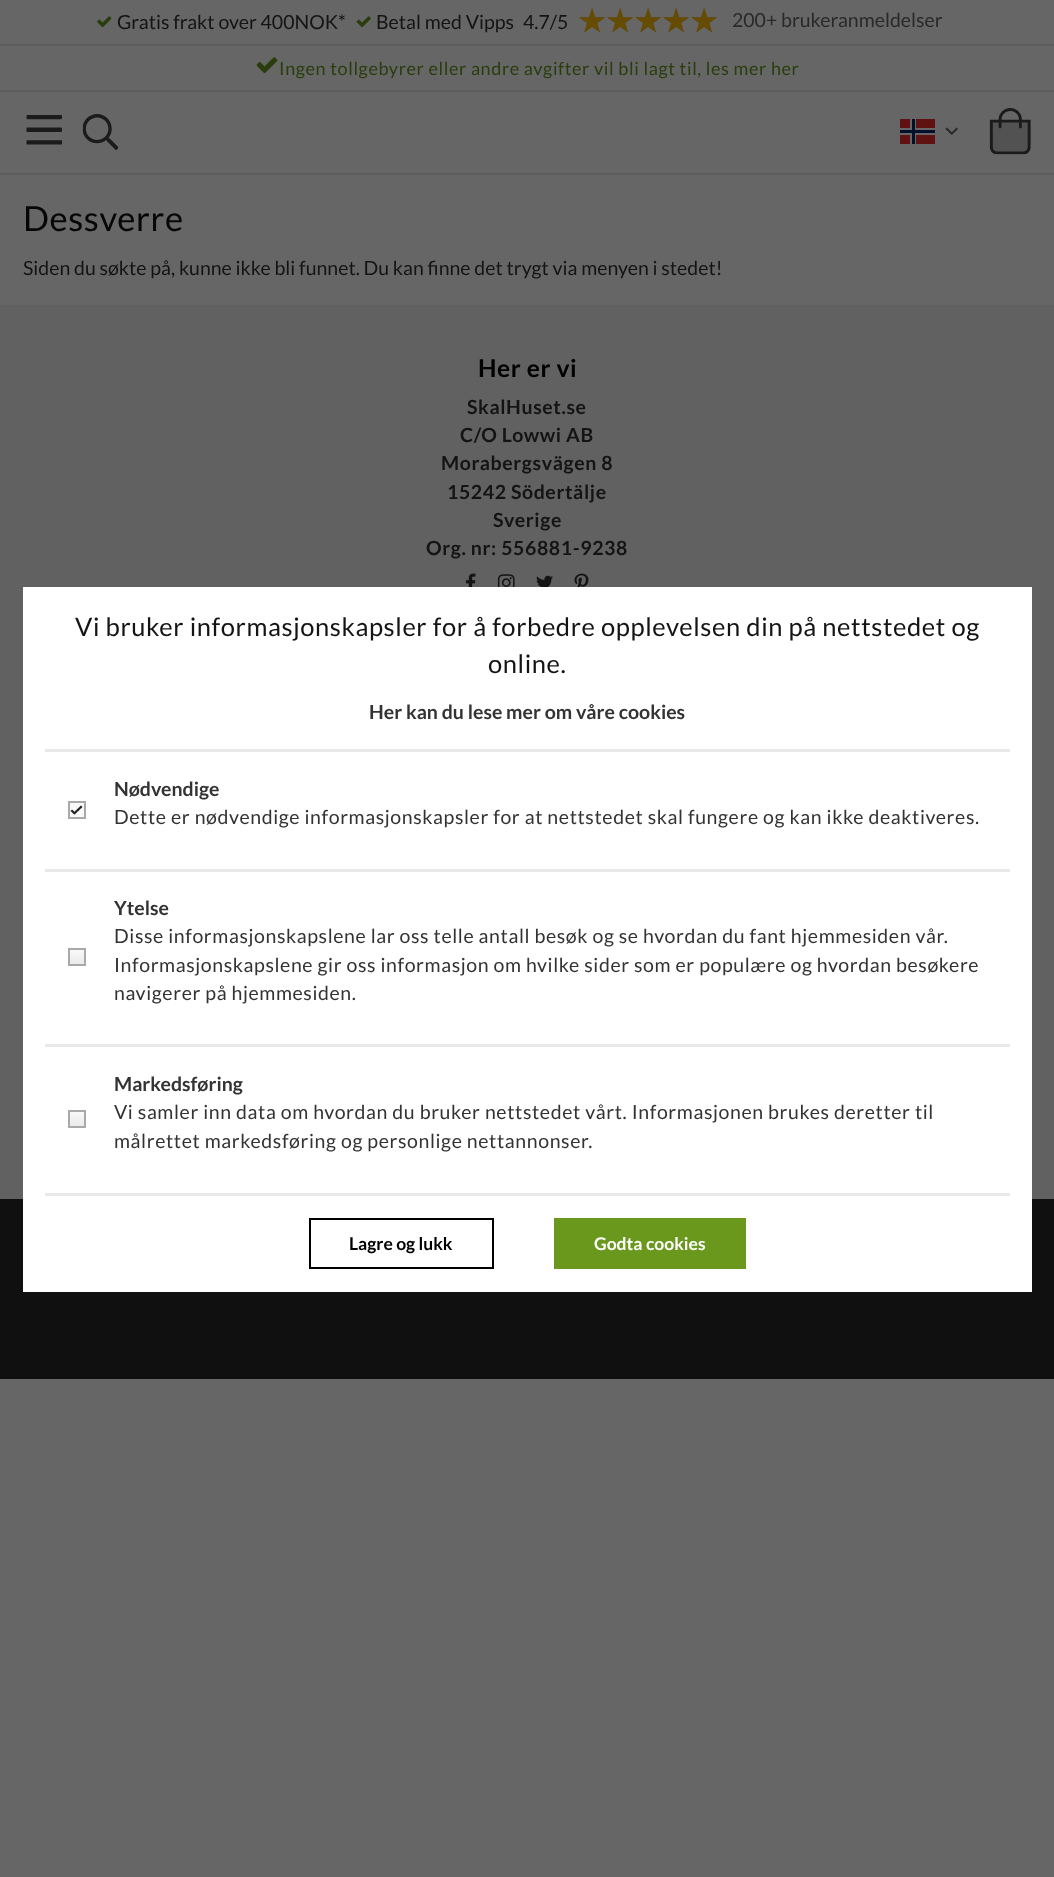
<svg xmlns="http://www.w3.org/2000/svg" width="1054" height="1877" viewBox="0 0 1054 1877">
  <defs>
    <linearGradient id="g1" gradientUnits="userSpaceOnUse" x1="77" y1="950" x2="77" y2="965"><stop offset="0" stop-color="rgb(249,249,249)"/><stop offset="1" stop-color="rgb(233,233,233)"/></linearGradient>
    <linearGradient id="g2" gradientUnits="userSpaceOnUse" x1="77" y1="1112" x2="77" y2="1127"><stop offset="0" stop-color="rgb(249,249,249)"/><stop offset="1" stop-color="rgb(233,233,233)"/></linearGradient>
  </defs>
  <rect width="100%" height="100%" fill="rgb(102,102,102)"/>
  <rect x="0" y="44" width="1054" height="2" fill="rgb(93,93,93)"/>
  <image x="97" y="16" width="15" height="12" href="pic1.png"/>
  <text x="117" y="29" font-family="Lato" font-size="19.5" fill="rgb(20,20,20)">Gratis frakt over 400NOK*</text>
  <image x="356" y="16" width="15" height="12" href="pic2.png"/>
  <g font-family="Lato" font-size="19.5" fill="rgb(20,20,20)">
    <text x="376" y="29">Betal med Vipps</text>
    <text x="523" y="29">4.7/5</text>
  </g>
  <image x="579" y="8" width="138" height="25" href="pic3.png"/>
  <image x="579" y="8" width="138" height="25" href="pic4.png"/>
  <text x="732" y="27" font-family="Lato" font-size="19.5" fill="rgb(41,41,41)">200+ brukeranmeldelser</text>
  <rect x="0" y="90" width="1054" height="2" fill="rgb(93,93,93)"/>
  <image x="256" y="57" width="22" height="17" href="pic5.png"/>
  <text x="279" y="75" font-family="Lato" font-size="18" letter-spacing="0.6" fill="rgb(42,61,12)">Ingen tollgebyrer eller andre avgifter vil bli lagt til, les mer her</text>
  <rect x="0" y="173" width="1054" height="2" fill="rgb(93,93,93)"/>
  <image x="26" y="115" width="36" height="30" href="pic6.png"/>
  <image x="82" y="114" width="37" height="36" href="pic7.png"/>
  <rect x="900" y="119" width="35" height="25" fill="rgb(96,17,18)"/>
  <rect x="910" y="119" width="6" height="25" fill="rgb(102,102,102)"/>
  <rect x="900" y="128" width="35" height="7" fill="rgb(102,102,102)"/>
  <rect x="912" y="119" width="3" height="25" fill="rgb(0,16,42)"/>
  <rect x="900" y="130" width="35" height="3" fill="rgb(0,16,42)"/>
  <image x="945" y="127" width="13" height="8" href="pic8.png"/>
  <rect x="992" y="122" width="36" height="30" fill="rgb(82,82,82)"/>
  <image x="989" y="108" width="42" height="47" href="pic9.png"/>
  <text x="23" y="231" font-family="Lato" font-size="34.5" letter-spacing="0.6" fill="rgb(6,6,6)">Dessverre</text>
  <text x="23" y="275" font-family="Lato" font-size="19.5" fill="rgb(20,20,20)">Siden du søkte på, kunne ikke bli funnet. Du kan finne det trygt via menyen i stedet!</text>
  <rect x="0" y="305" width="1054" height="894" fill="rgb(97,97,97)"/>
  <text x="478" y="377" font-family="Lato" font-size="24.5" font-weight="bold" letter-spacing="0.6" fill="rgb(0,0,0)">Her er vi</text>
  <g font-family="Lato" font-size="19.5" font-weight="bold" letter-spacing="0.6" fill="rgb(20,20,20)">
    <text x="467" y="414">SkalHuset.se</text>
    <text x="460" y="442">C/O Lowwi AB</text>
    <text x="441" y="470">Morabergsvägen 8</text>
    <text x="447" y="499">15242 Södertälje</text>
    <text x="493" y="527">Sverige</text>
    <text x="426" y="555">Org. nr: 556881-9238</text>
  </g>
  <image x="466" y="573" width="10" height="14" href="pic10.png"/>
  <image x="497" y="574" width="18" height="13" href="pic11.png"/>
  <image x="536" y="575" width="17" height="12" href="pic12.png"/>
  <image x="574" y="573" width="15" height="14" href="pic13.png"/>
  <rect x="0" y="1199" width="1054" height="180" fill="rgb(17,16,16)"/>
  <rect x="23" y="587" width="1009" height="705" fill="rgb(255,255,255)"/>
  <rect x="45" y="749" width="965" height="3" fill="rgb(233,233,233)"/>
  <g font-family="Lato" font-size="25.5" letter-spacing="0.6" fill="rgb(20,20,20)">
    <text x="75" y="636">Vi bruker informasjonskapsler for å forbedre opplevelsen din på nettstedet og</text>
    <text x="488" y="673">online.</text>
  </g>
  <text x="369" y="719" font-family="Lato" font-size="19.5" font-weight="bold" fill="rgb(51,51,51)">Her kan du lese mer om våre cookies</text>
  <rect x="45" y="869" width="965" height="3" fill="rgb(233,233,233)"/>
  <rect x="70" y="803" width="14" height="14" fill="rgb(249,249,249)"/>
  <image x="70" y="805" width="13" height="10" href="pic14.png"/>
  <rect x="69" y="802" width="16" height="16" fill="none" stroke="rgb(169,169,169)" stroke-width="2"/>
  <text x="114" y="796" font-family="Lato" font-size="19.5" font-weight="bold" fill="rgb(51,51,51)">Nødvendige</text>
  <text x="114" y="824" font-family="Lato" font-size="19.5" letter-spacing="0.6" fill="rgb(51,51,51)">Dette er nødvendige informasjonskapsler for at nettstedet skal fungere og kan ikke deaktiveres.</text>
  <rect x="45" y="1044" width="965" height="3" fill="rgb(233,233,233)"/>
  <rect x="70" y="950" width="14" height="14" fill="url(#g1)"/>
  <rect x="69" y="949" width="16" height="16" fill="none" stroke="rgb(169,169,169)" stroke-width="2"/>
  <text x="114" y="915" font-family="Lato" font-size="19.5" font-weight="bold" fill="rgb(51,51,51)">Ytelse</text>
  <g font-family="Lato" font-size="19.5" letter-spacing="0.6" fill="rgb(51,51,51)">
    <text>
      <tspan x="114" y="943">Disse informasjonskapslene lar oss telle antall besøk og se hvordan du fant hjemmesiden vår.</tspan>
      <tspan x="114" y="972">Informasjonskapslene gir oss informasjon om hvilke sider som er populære og hvordan besøkere</tspan>
      <tspan x="114" y="1000">navigerer på hjemmesiden.</tspan>
    </text>
  </g>
  <rect x="45" y="1193" width="965" height="3" fill="rgb(233,233,233)"/>
  <rect x="70" y="1112" width="14" height="14" fill="url(#g2)"/>
  <rect x="69" y="1111" width="16" height="16" fill="none" stroke="rgb(169,169,169)" stroke-width="2"/>
  <text x="114" y="1091" font-family="Lato" font-size="19.5" font-weight="bold" fill="rgb(51,51,51)">Markedsføring</text>
  <g font-family="Lato" font-size="19.5" letter-spacing="0.6" fill="rgb(51,51,51)">
    <text>
      <tspan x="114" y="1119">Vi samler inn data om hvordan du bruker nettstedet vårt. Informasjonen brukes deretter til</tspan>
      <tspan x="114" y="1148">målrettet markedsføring og personlige nettannonser.</tspan>
    </text>
  </g>
  <rect x="310" y="1219" width="183" height="49" fill="none" stroke="rgb(0,0,0)" stroke-width="2"/>
  <text x="349" y="1250" font-family="Lato" font-size="17.5" font-weight="bold" fill="rgb(0,0,0)">Lagre og lukk</text>
  <rect x="554" y="1218" width="192" height="51" fill="rgb(105,152,29)"/>
  <text x="594" y="1250" font-family="Lato" font-size="17.5" font-weight="bold" fill="rgb(255,255,255)">Godta cookies</text>
</svg>
